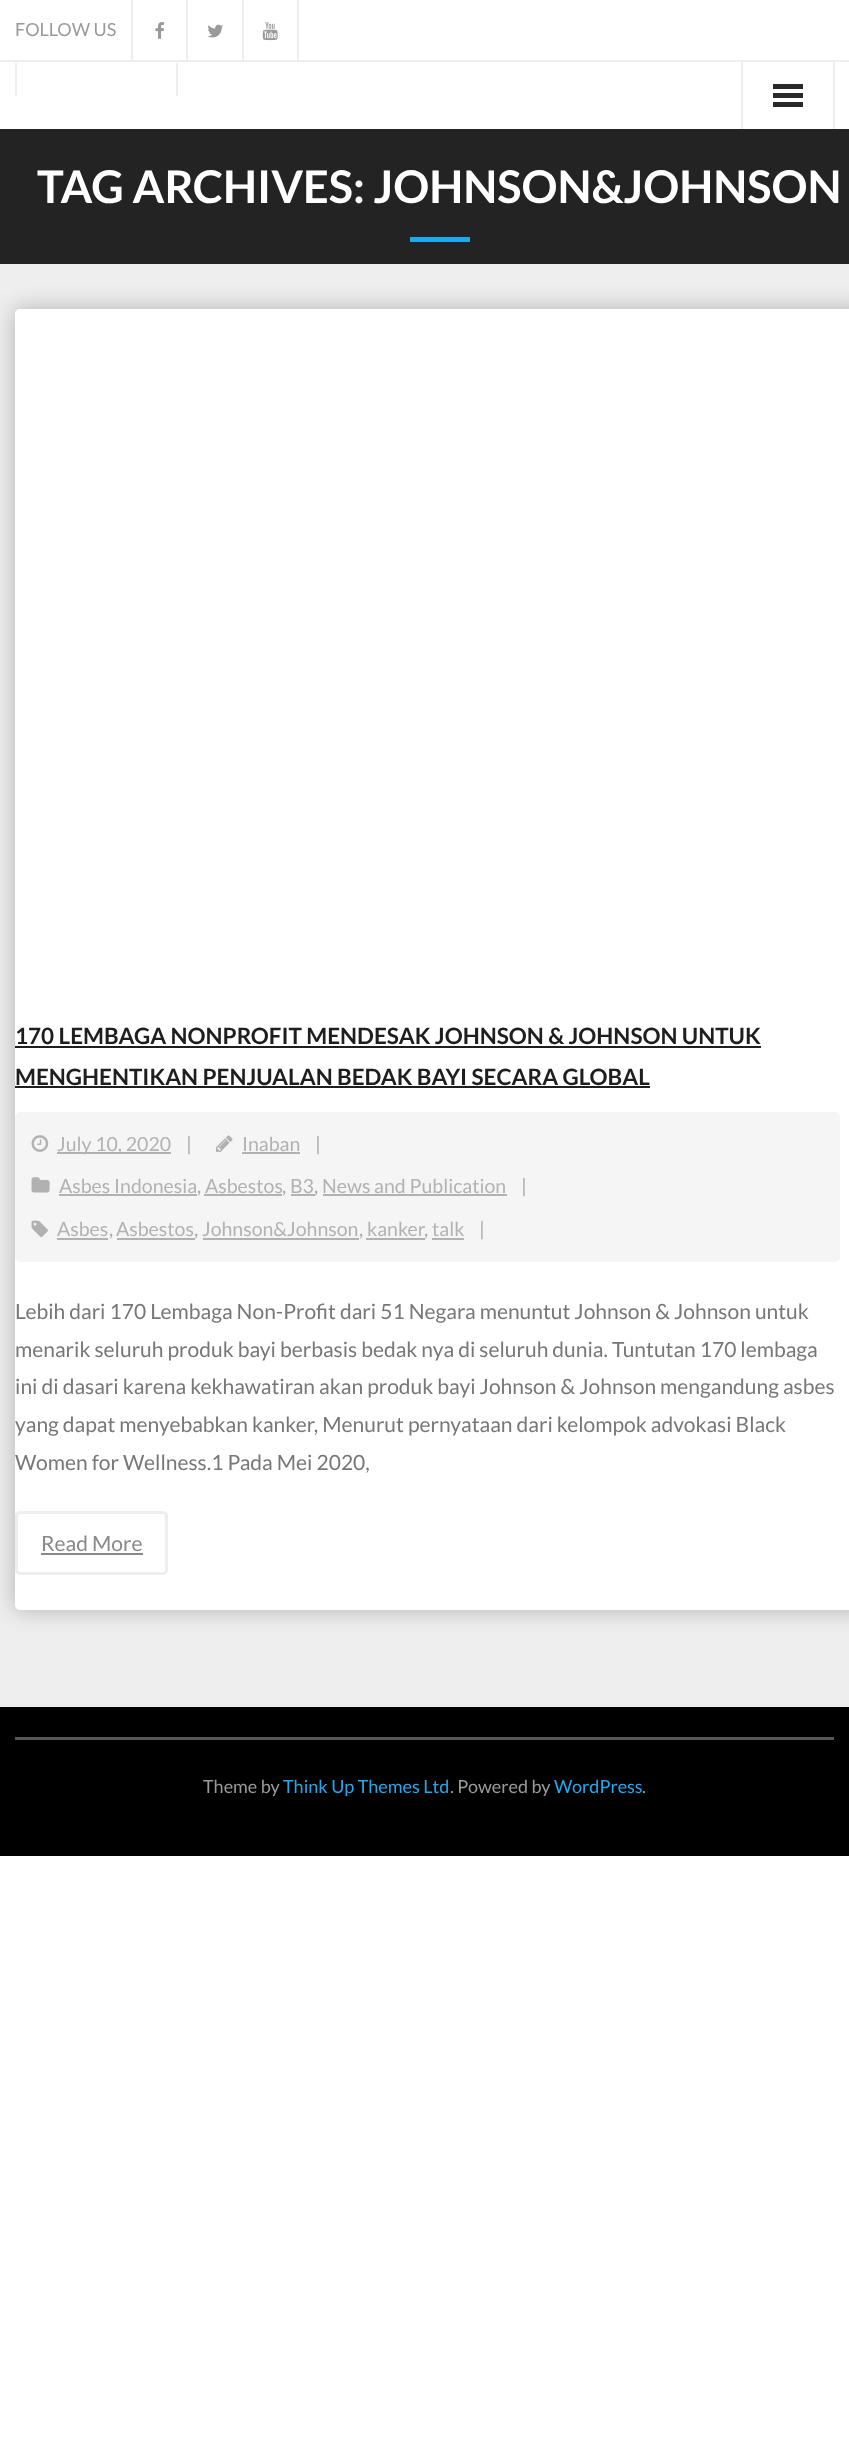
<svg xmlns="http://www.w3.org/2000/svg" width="849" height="2454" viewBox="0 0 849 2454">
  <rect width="100%" height="100%" fill="rgb(255,255,255)"/>
  <rect x="0" y="264" width="849" height="1443" fill="rgb(238,238,238)"/>
  <rect x="0" y="60" width="849" height="2" fill="rgb(238,238,238)"/>
  <text x="15" y="36" font-family="Lato" font-size="18" fill="rgb(154,154,154)">FOLLOW US</text>
  <rect x="131" y="0" width="2" height="60" fill="rgb(238,238,238)"/>
  <image x="155" y="22" width="10" height="17" href="pic1.png"/>
  <rect x="186" y="0" width="2" height="60" fill="rgb(238,238,238)"/>
  <image x="207" y="24" width="16" height="14" href="pic2.png"/>
  <rect x="297" y="0" width="2" height="60" fill="rgb(238,238,238)"/>
  <rect x="242" y="0" width="2" height="60" fill="rgb(238,238,238)"/>
  <image x="262" y="22" width="16" height="19" href="pic3.png"/>
  <rect x="176" y="63" width="2" height="33" fill="rgb(238,238,238)"/>
  <rect x="15" y="63" width="2" height="33" fill="rgb(238,238,238)"/>
  <rect x="833" y="62" width="2" height="67" fill="rgb(238,238,238)"/>
  <rect x="741" y="62" width="2" height="67" fill="rgb(238,238,238)"/>
  <rect x="773" y="84" width="30" height="5" fill="rgb(41,41,41)"/>
  <rect x="773" y="93" width="30" height="5" fill="rgb(41,41,41)"/>
  <rect x="773" y="102" width="30" height="5" fill="rgb(41,41,41)"/>
  <rect x="0" y="129" width="849" height="135" fill="rgb(35,35,35)"/>
  <text x="37" y="203" font-family="Lato" font-size="45" font-weight="bold" fill="rgb(255,255,255)">TAG ARCHIVES: JOHNSON&amp;JOHNSON</text>
  <rect x="410" y="237" width="60" height="5" fill="rgb(30,170,241)"/>
  <rect x="15" y="309" width="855" height="1301" rx="5" fill="rgba(0,0,0,0.25)" filter="blur(11px)"/>
  <rect x="15" y="309" width="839" height="1301" rx="5" fill="rgb(255,255,255)"/>
  <rect x="18" y="1609" width="1" height="1" fill="rgb(255,255,255)"/>
  <path d="M20 309H849C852 309 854 311 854 314V993H15V314C15 311 17 309 20 309Z" fill="rgb(255,255,255)"/>
  <text x="15" y="1044" font-family="Lato" font-size="22.5" font-weight="bold" fill="rgb(30,30,30)">170 LEMBAGA NONPROFIT MENDESAK JOHNSON &amp; JOHNSON UNTUK</text>
  <rect x="15" y="1046" width="746" height="2" fill="rgb(30,30,30)"/>
  <text x="15" y="1085" font-family="Lato" font-size="22.5" font-weight="bold" fill="rgb(30,30,30)">MENGHENTIKAN PENJUALAN BEDAK BAYI SECARA GLOBAL</text>
  <rect x="15" y="1086" width="635" height="2" fill="rgb(30,30,30)"/>
  <rect x="15" y="1112" width="825" height="150" rx="5" fill="rgb(245,245,245)"/>
  <image x="31" y="1135" width="18" height="17" href="pic4.png"/>
  <rect x="57" y="1152" width="114" height="2" fill="rgb(178,178,178)"/>
  <text x="57" y="1151" font-family="Lato" font-size="19.5" fill="rgb(178,178,178)">July 10, 2020</text>
  <text x="186" y="1151" font-family="Lato" font-size="19.5" fill="rgb(170,170,170)">|</text>
  <image x="216" y="1135" width="17" height="17" href="pic5.png"/>
  <text x="242" y="1151" font-family="Lato" font-size="19.5" fill="rgb(178,178,178)">Inaban</text>
  <rect x="242" y="1152" width="58" height="2" fill="rgb(178,178,178)"/>
  <text x="315" y="1151" font-family="Lato" font-size="19.5" fill="rgb(170,170,170)">|</text>
  <image x="31" y="1177" width="19" height="16" href="pic6.png"/>
  <text x="59" y="1193" font-family="Lato" font-size="19.5" fill="rgb(178,178,178)">Asbes Indonesia</text>
  <rect x="59" y="1194" width="138" height="2" fill="rgb(178,178,178)"/>
  <text x="197" y="1193" font-family="Lato" font-size="19.5" fill="rgb(170,170,170)">,</text>
  <text x="205" y="1193" font-family="Lato" font-size="19.5" fill="rgb(178,178,178)">Asbestos</text>
  <rect x="204" y="1194" width="78" height="2" fill="rgb(178,178,178)"/>
  <text x="282" y="1193" font-family="Lato" font-size="19.5" fill="rgb(170,170,170)">,</text>
  <text x="290" y="1193" font-family="Lato" font-size="19.5" fill="rgb(178,178,178)">B3</text>
  <rect x="291" y="1194" width="24" height="2" fill="rgb(178,178,178)"/>
  <text x="314" y="1193" font-family="Lato" font-size="19.5" fill="rgb(170,170,170)">,</text>
  <text x="322" y="1193" font-family="Lato" font-size="19.5" fill="rgb(178,178,178)">News and Publication</text>
  <rect x="323" y="1194" width="184" height="2" fill="rgb(178,178,178)"/>
  <text x="521" y="1193" font-family="Lato" font-size="19.5" fill="rgb(170,170,170)">|</text>
  <image x="31" y="1220" width="17" height="18" href="pic7.png"/>
  <text x="57" y="1236" font-family="Lato" font-size="19.5" fill="rgb(178,178,178)">Asbes</text>
  <rect x="57" y="1238" width="51" height="2" fill="rgb(178,178,178)"/>
  <text x="109" y="1236" font-family="Lato" font-size="19.5" fill="rgb(170,170,170)">,</text>
  <text x="116" y="1236" font-family="Lato" font-size="19.5" fill="rgb(178,178,178)">Asbestos</text>
  <rect x="117" y="1238" width="78" height="2" fill="rgb(178,178,178)"/>
  <text x="194" y="1236" font-family="Lato" font-size="19.5" fill="rgb(170,170,170)">,</text>
  <text x="202" y="1236" font-family="Lato" font-size="19.5" fill="rgb(178,178,178)">Johnson&amp;Johnson</text>
  <rect x="203" y="1238" width="156" height="2" fill="rgb(178,178,178)"/>
  <g font-family="Lato" font-size="19.5" fill="rgb(170,170,170)">
    <text x="359" y="1236">,</text>
    <text x="424" y="1236">,</text>
  </g>
  <text x="367" y="1236" font-family="Lato" font-size="19.5" fill="rgb(178,178,178)">kanker</text>
  <rect x="366" y="1238" width="59" height="2" fill="rgb(177,177,177)"/>
  <text x="432" y="1236" font-family="Lato" font-size="19.5" fill="rgb(178,178,178)">talk</text>
  <rect x="432" y="1238" width="32" height="2" fill="rgb(178,178,178)"/>
  <text x="479" y="1236" font-family="Lato" font-size="19.5" fill="rgb(170,170,170)">|</text>
  <g font-family="Lato" font-size="21" fill="rgb(119,119,119)">
    <text>
      <tspan x="15" y="1319">Lebih dari 170 Lembaga Non-Profit dari 51 Negara menuntut Johnson &amp; Johnson untuk</tspan>
      <tspan x="15" y="1357">menarik seluruh produk bayi berbasis bedak nya di seluruh dunia. Tuntutan 170 lembaga</tspan>
      <tspan x="15" y="1394">ini di dasari karena kekhawatiran akan produk bayi Johnson &amp; Johnson mengandung asbes</tspan>
      <tspan x="15" y="1432">yang dapat menyebabkan kanker, Menurut pernyataan dari kelompok advokasi Black</tspan>
      <tspan x="15" y="1470">Women for Wellness.1 Pada Mei 2020,</tspan>
    </text>
  </g>
  <rect x="16.5" y="1512.5" width="150" height="61" rx="3.5" fill="none" stroke="rgb(238,238,238)" stroke-width="3"/>
  <text x="41" y="1551" font-family="Lato" font-size="21" fill="rgb(136,136,136)">Read More</text>
  <rect x="41" y="1553" width="102" height="2" fill="rgb(136,136,136)"/>
  <rect x="0" y="1707" width="849" height="149" fill="rgb(0,0,0)"/>
  <rect x="15" y="1737" width="819" height="3" fill="rgb(86,86,86)"/>
  <text x="203" y="1793" font-family="Lato" font-size="18" fill="rgb(154,154,154)">Theme by</text>
  <text x="283" y="1793" font-family="Lato" font-size="18" fill="rgb(30,170,241)">Think Up Themes Ltd</text>
  <text x="450" y="1793" font-family="Lato" font-size="18" fill="rgb(154,154,154)">. Powered by</text>
  <text x="554" y="1793" font-family="Lato" font-size="18" fill="rgb(30,170,241)">WordPress</text>
  <text x="642" y="1793" font-family="Lato" font-size="18" fill="rgb(154,154,154)">.</text>
</svg>
